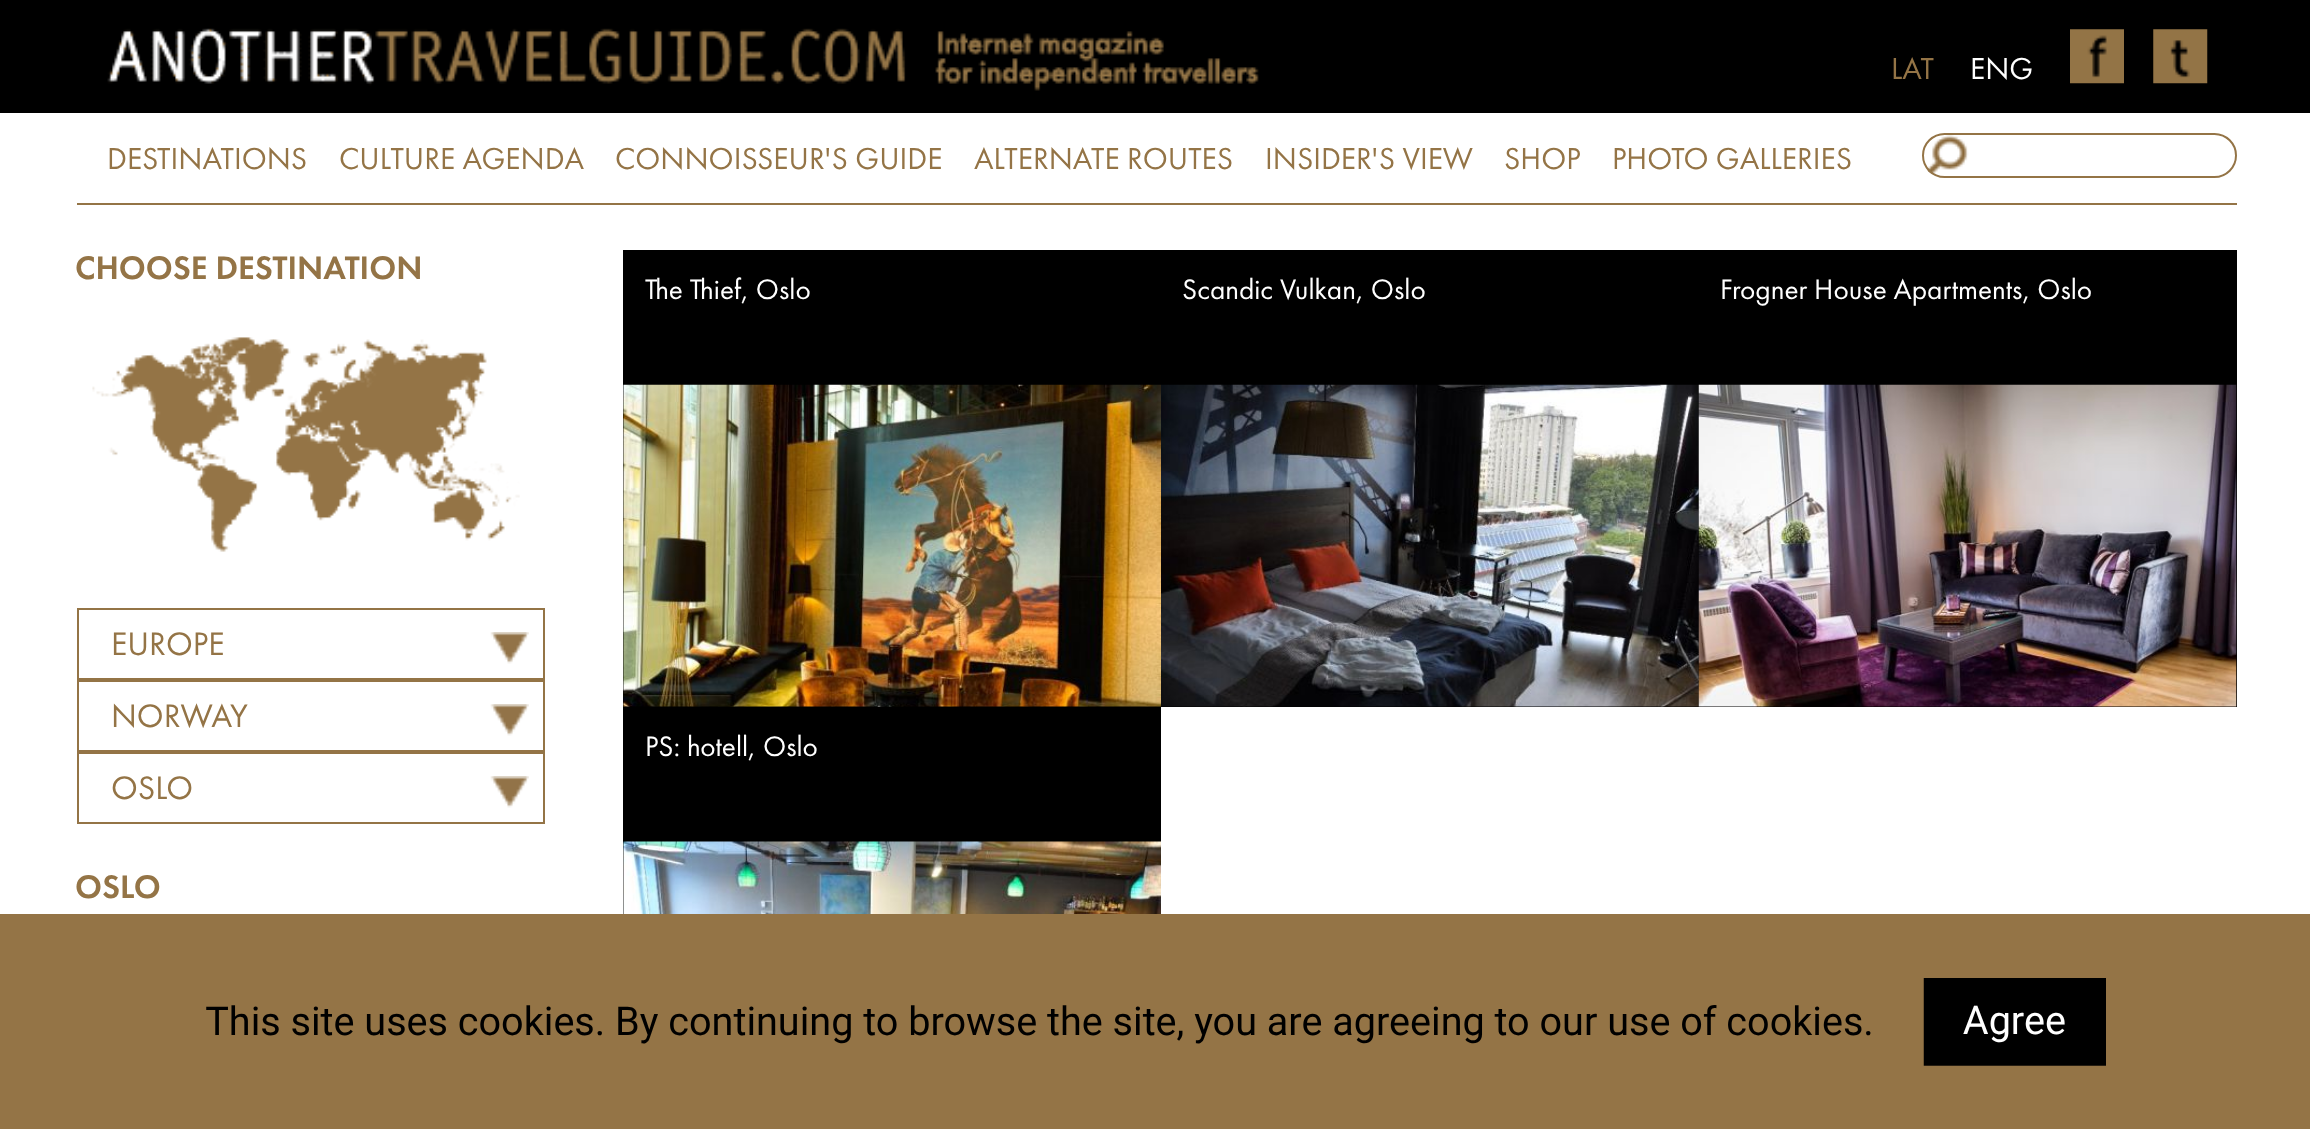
<svg xmlns="http://www.w3.org/2000/svg" width="2310" height="1129" viewBox="0 0 2310 1129">
  <rect width="100%" height="100%" fill="rgb(255,255,255)"/>
  <rect x="0" y="0" width="2310" height="113" fill="rgb(0,0,0)"/>
  <image x="107" y="28" width="1152" height="63" href="pic1.png"/>
  <text x="1891" y="79" font-family="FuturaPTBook" font-size="31.5" fill="rgb(148,116,70)">LAT</text>
  <text x="1970" y="79" font-family="FuturaPTBook" font-size="31.5" fill="rgb(255,255,255)">ENG</text>
  <image x="2070" y="29" width="54" height="55" href="pic2.png"/>
  <image x="2153" y="29" width="55" height="55" href="pic3.png"/>
  <rect x="77" y="203" width="2160" height="2" fill="rgb(148,116,70)"/>
  <g font-family="FuturaPTBook" font-size="31.5" fill="rgb(148,116,70)">
    <text x="107" y="169">DESTINATIONS</text>
    <text x="339" y="169">CULTURE AGENDA</text>
    <text x="615" y="169">CONNOISSEUR'S GUIDE</text>
    <text x="974" y="169">ALTERNATE ROUTES</text>
    <text x="1265" y="169">INSIDER'S VIEW</text>
    <text x="1504" y="169">SHOP</text>
    <text x="1612" y="169">PHOTO GALLERIES</text>
  </g>
  <image x="1926" y="135" width="43" height="40" href="pic4.png"/>
  <rect x="1923" y="134" width="313" height="43" rx="21.5" fill="none" stroke="rgb(148,116,70)" stroke-width="2"/>
  <text x="75" y="279" font-family="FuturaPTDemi" font-size="33.75" fill="rgb(148,116,70)">CHOOSE DESTINATION</text>
  <image x="92" y="337" width="428" height="215" href="pic5.png"/>
  <rect x="78" y="609" width="466" height="70" fill="none" stroke="rgb(148,116,70)" stroke-width="2"/>
  <text x="111" y="655" font-family="FuturaPTBook" font-size="33.75" fill="rgb(148,116,70)">EUROPE</text>
  <image x="490" y="632" width="39" height="32" href="pic6.png"/>
  <rect x="78" y="681" width="466" height="70" fill="none" stroke="rgb(148,116,70)" stroke-width="2"/>
  <text x="111" y="727" font-family="FuturaPTBook" font-size="33.75" fill="rgb(148,116,70)">NORWAY</text>
  <image x="490" y="704" width="39" height="32" href="pic6.png"/>
  <rect x="78" y="753" width="466" height="70" fill="none" stroke="rgb(148,116,70)" stroke-width="2"/>
  <text x="111" y="799" font-family="FuturaPTBook" font-size="33.75" fill="rgb(148,116,70)">OSLO</text>
  <image x="490" y="776" width="39" height="32" href="pic7.png"/>
  <text x="75" y="898" font-family="FuturaPTDemi" font-size="33.75" fill="rgb(148,116,70)">OSLO</text>
  <rect x="623" y="250" width="1614" height="457" fill="rgb(0,0,0)"/>
  <image x="623" y="384" width="538" height="323" href="pic8.png"/>
  <text x="645" y="299" font-family="FuturaPTBook" font-size="29.25" fill="rgb(255,255,255)">The Thief, Oslo</text>
  <image x="1161" y="384" width="538" height="323" href="pic9.png"/>
  <text x="1182" y="299" font-family="FuturaPTBook" font-size="29.25" fill="rgb(255,255,255)">Scandic Vulkan, Oslo</text>
  <image x="1698" y="384" width="539" height="323" href="pic10.png"/>
  <text x="1720" y="299" font-family="FuturaPTBook" font-size="29.25" fill="rgb(255,255,255)">Frogner House Apartments, Oslo</text>
  <rect x="623" y="707" width="538" height="207" fill="rgb(0,0,0)"/>
  <image x="623" y="841" width="538" height="73" href="pic11.png"/>
  <text x="645" y="756" font-family="FuturaPTBook" font-size="29.25" fill="rgb(255,255,255)">PS: hotell, Oslo</text>
  <rect x="0" y="914" width="2310" height="215" fill="rgb(148,116,70)"/>
  <image x="206" y="978" width="1900" height="88" href="pic12.png"/>
</svg>
